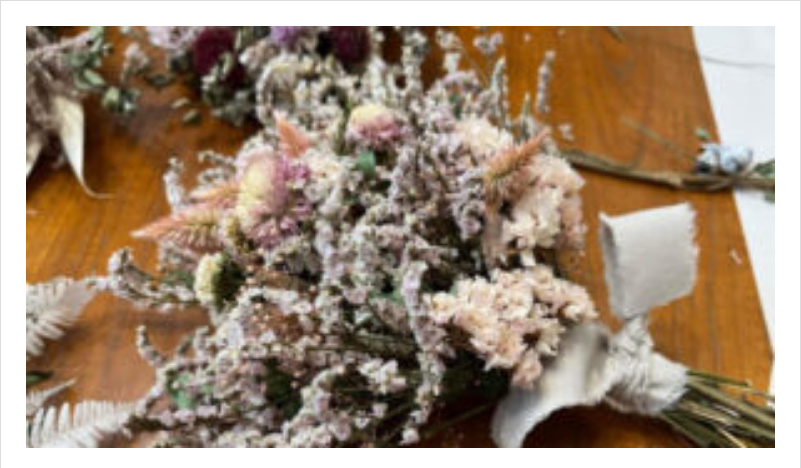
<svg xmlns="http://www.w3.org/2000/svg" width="801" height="468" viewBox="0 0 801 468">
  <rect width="100%" height="100%" fill="rgb(255,255,255)"/>
  <rect x="0.5" y="0.5" width="800" height="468" fill="none" stroke="rgb(220,220,222)"/>
  <image x="26" y="26" width="749" height="422" href="pic1.png"/>
</svg>
